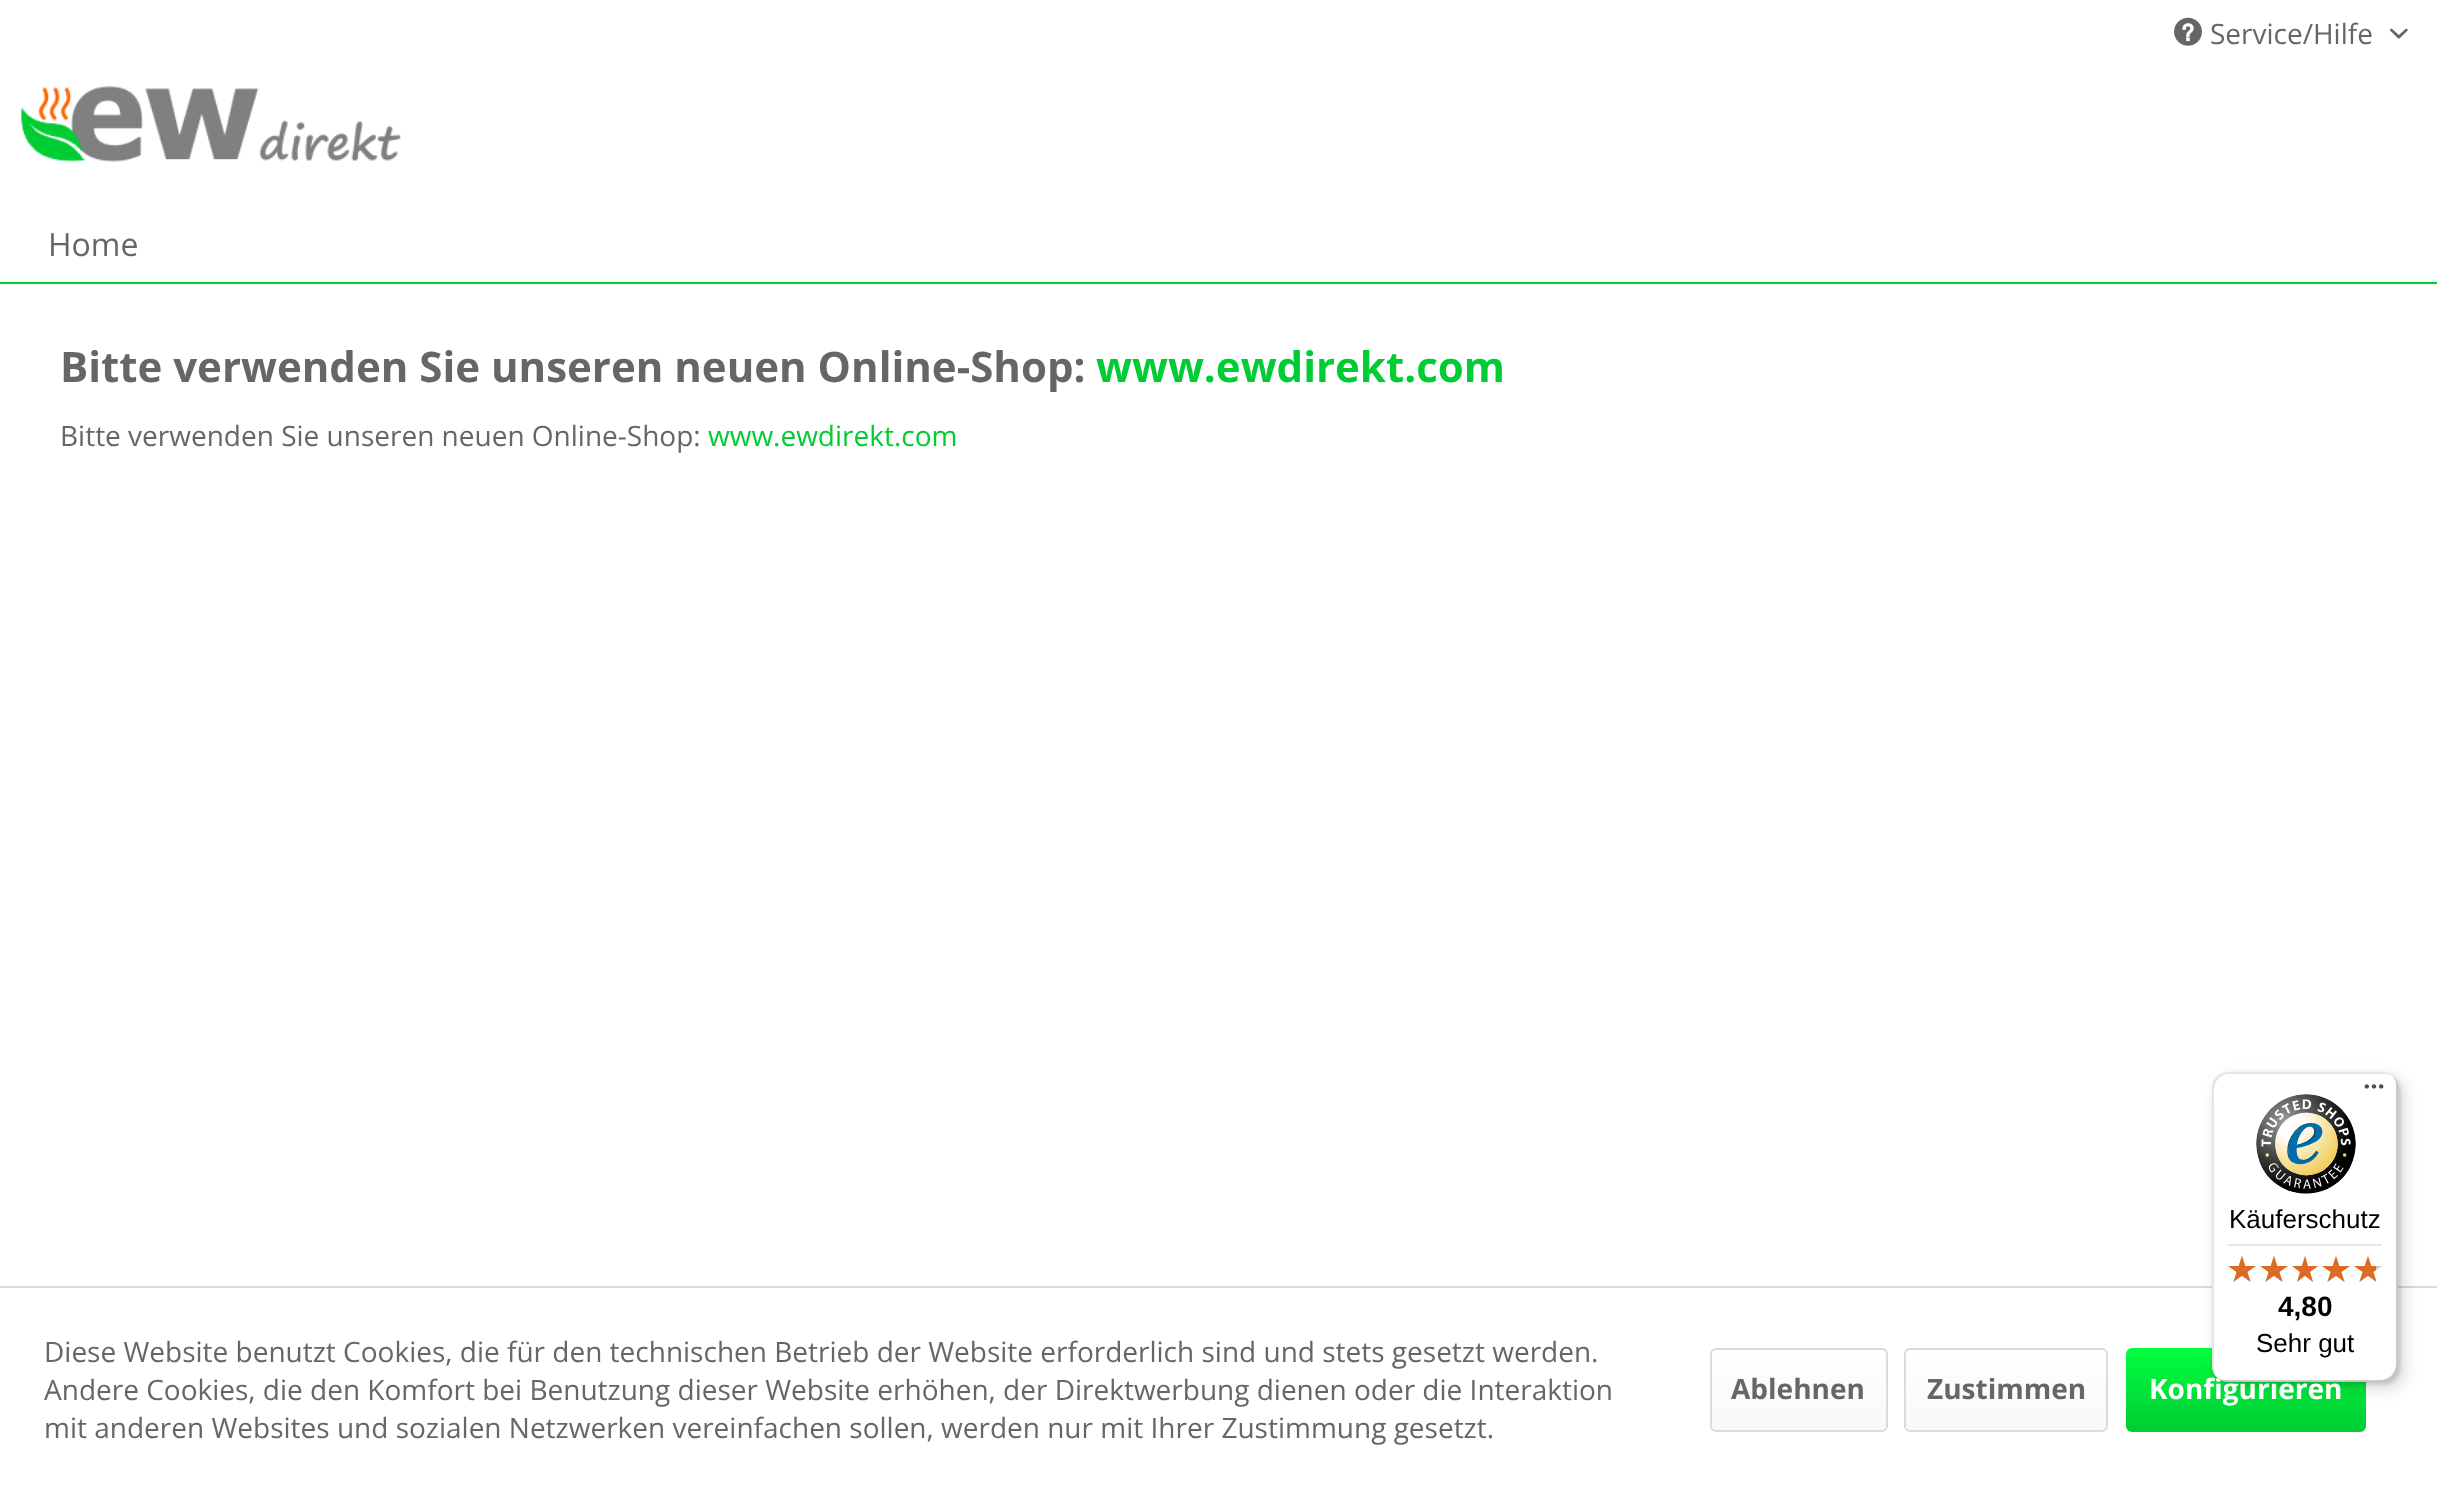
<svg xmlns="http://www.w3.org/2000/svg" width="2437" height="1489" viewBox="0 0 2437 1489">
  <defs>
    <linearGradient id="g1" gradientUnits="userSpaceOnUse" x1="2246" y1="1348" x2="2246" y2="1432"><stop offset="0" stop-color="rgb(0,255,64)"/><stop offset="1" stop-color="rgb(0,204,51)"/></linearGradient>
    <linearGradient id="g2" gradientUnits="userSpaceOnUse" x1="1799" y1="1350" x2="1799" y2="1430"><stop offset="0" stop-color="rgb(255,255,255)"/><stop offset="1" stop-color="rgb(248,248,250)"/></linearGradient>
    <linearGradient id="g3" gradientUnits="userSpaceOnUse" x1="2006" y1="1350" x2="2006" y2="1430"><stop offset="0" stop-color="rgb(255,255,255)"/><stop offset="1" stop-color="rgb(248,248,250)"/></linearGradient>
  </defs>
  <rect width="100%" height="100%" fill="rgb(255,255,255)"/>
  <image x="2174" y="17" width="28" height="29" href="pic1.png"/>
  <text x="2210" y="44" font-family="Open Sans" font-size="28" fill="rgb(102,102,102)">Service/Hilfe</text>
  <image x="2390" y="28" width="18" height="11" href="pic2.png"/>
  <image x="21" y="86" width="380" height="76" href="pic3.png"/>
  <rect x="0" y="282" width="2437" height="2" fill="rgb(0,204,51)"/>
  <text x="48" y="256" font-family="Open Sans" font-size="32" fill="rgb(102,102,102)">Home</text>
  <text x="60" y="382" font-family="Open Sans" font-size="42" font-weight="bold" fill="rgb(102,102,102)">Bitte verwenden Sie unseren neuen Online-Shop:</text>
  <text x="1096" y="382" font-family="Open Sans" font-size="42" font-weight="bold" fill="rgb(0,204,51)">www.ewdirekt.com</text>
  <text x="60" y="446" font-family="Open Sans" font-size="28" fill="rgb(102,102,102)">Bitte verwenden Sie unseren neuen Online-Shop:</text>
  <text x="708" y="446" font-family="Open Sans" font-size="28" fill="rgb(0,204,51)">www.ewdirekt.com</text>
  <rect x="0" y="1286" width="2437" height="2" fill="rgb(218,218,229)"/>
  <rect x="2126" y="1348" width="240" height="84" rx="6" fill="url(#g1)"/>
  <rect x="2218" y="1078" width="186" height="310" rx="16" fill="rgba(0,0,0,0.15)" filter="blur(8px)"/>
  <rect x="2214" y="1074" width="186" height="310" rx="16" fill="rgba(0,0,0,0.15)" filter="blur(2px)"/>
  <rect x="2212" y="1072" width="186" height="310" rx="16" fill="rgb(255,255,255)"/>
  <path d="M2230 1074H2384C2388 1074 2391 1075 2394 1077C2391 1074 2387 1072 2382 1072H2228C2219 1072 2212 1079 2212 1088V1366C2212 1371 2214 1375 2217 1378C2215 1375 2214 1372 2214 1368V1090C2214 1081 2221 1074 2230 1074Z" fill="rgba(0,0,0,0.1)"/>
  <text x="2149" y="1399" font-family="Open Sans" font-size="28" font-weight="bold" fill="rgb(255,255,255)">Konfigurieren</text>
  <path d="M2216 1377C2219 1380 2223 1382 2228 1382H2382C2391 1382 2398 1375 2398 1366V1088C2398 1083 2396 1079 2393 1076C2395 1079 2396 1082 2396 1086V1364C2396 1373 2389 1380 2380 1380H2226C2222 1380 2219 1379 2216 1377Z" fill="rgba(0,0,0,0.2)"/>
  <path d="M2217 1377C2220 1380 2224 1382 2228 1382H2382C2391 1382 2398 1375 2398 1366V1088C2398 1084 2396 1080 2393 1077C2396 1080 2397 1083 2397 1087V1365C2397 1374 2390 1381 2381 1381H2227C2223 1381 2220 1380 2217 1377Z" fill="rgba(50,50,50,0.2)"/>
  <path d="M2217 1377C2220 1380 2224 1382 2228 1382H2382C2391 1382 2398 1375 2398 1366V1088C2398 1084 2396 1080 2393 1077C2396 1080 2397 1083 2397 1087V1365C2397 1374 2390 1381 2381 1381H2227C2223 1381 2220 1380 2217 1377Z" fill="rgba(255,255,255,0.3)"/>
  <image x="2364" y="1084" width="20" height="5" href="pic4.png"/>
  <image x="2256" y="1094" width="100" height="100" href="pic5.png"/>
  <text x="2229" y="1228" font-family="Liberation Sans" font-size="26" fill="rgb(0,0,0)">Käuferschutz</text>
  <rect x="2228" y="1244" width="154" height="2" fill="rgb(229,229,229)"/>
  <image x="2228" y="1256" width="28" height="26" href="pic6.png"/>
  <image x="2260" y="1256" width="28" height="26" href="pic6.png"/>
  <image x="2292" y="1256" width="26" height="26" href="pic7.png"/>
  <image x="2322" y="1256" width="28" height="26" href="pic6.png"/>
  <image x="2354" y="1256" width="28" height="26" href="pic6.png"/>
  <image x="2228" y="1256" width="28" height="26" href="pic8.png"/>
  <image x="2260" y="1256" width="28" height="26" href="pic8.png"/>
  <image x="2292" y="1256" width="26" height="26" href="pic9.png"/>
  <image x="2322" y="1256" width="28" height="26" href="pic8.png"/>
  <image x="2354" y="1256" width="22" height="26" href="pic10.png"/>
  <text x="2278" y="1316" font-family="Liberation Sans" font-size="28" font-weight="bold" fill="rgb(0,0,0)">4,80</text>
  <text x="2256" y="1352" font-family="Liberation Sans" font-size="26" fill="rgb(0,0,0)">Sehr gut</text>
  <g font-family="Open Sans" font-size="28" fill="rgb(102,102,102)">
    <text>
      <tspan x="44" y="1362">Diese Website benutzt Cookies, die für den technischen Betrieb der Website erforderlich sind und stets gesetzt werden.</tspan>
      <tspan x="44" y="1400">Andere Cookies, die den Komfort bei Benutzung dieser Website erhöhen, der Direktwerbung dienen oder die Interaktion</tspan>
      <tspan x="44" y="1438">mit anderen Websites und sozialen Netzwerken vereinfachen sollen, werden nur mit Ihrer Zustimmung gesetzt.</tspan>
    </text>
  </g>
  <rect x="1712" y="1350" width="174" height="80" rx="4" fill="url(#g2)"/>
  <rect x="1711" y="1349" width="176" height="82" rx="5" fill="none" stroke="rgb(218,218,229)" stroke-width="2"/>
  <text x="1731" y="1399" font-family="Open Sans" font-size="28" font-weight="bold" fill="rgb(102,102,102)">Ablehnen</text>
  <rect x="1906" y="1350" width="200" height="80" rx="4" fill="url(#g3)"/>
  <rect x="1905" y="1349" width="202" height="82" rx="5" fill="none" stroke="rgb(218,218,229)" stroke-width="2"/>
  <text x="1927" y="1399" font-family="Open Sans" font-size="28" font-weight="bold" fill="rgb(102,102,102)">Zustimmen</text>
</svg>
